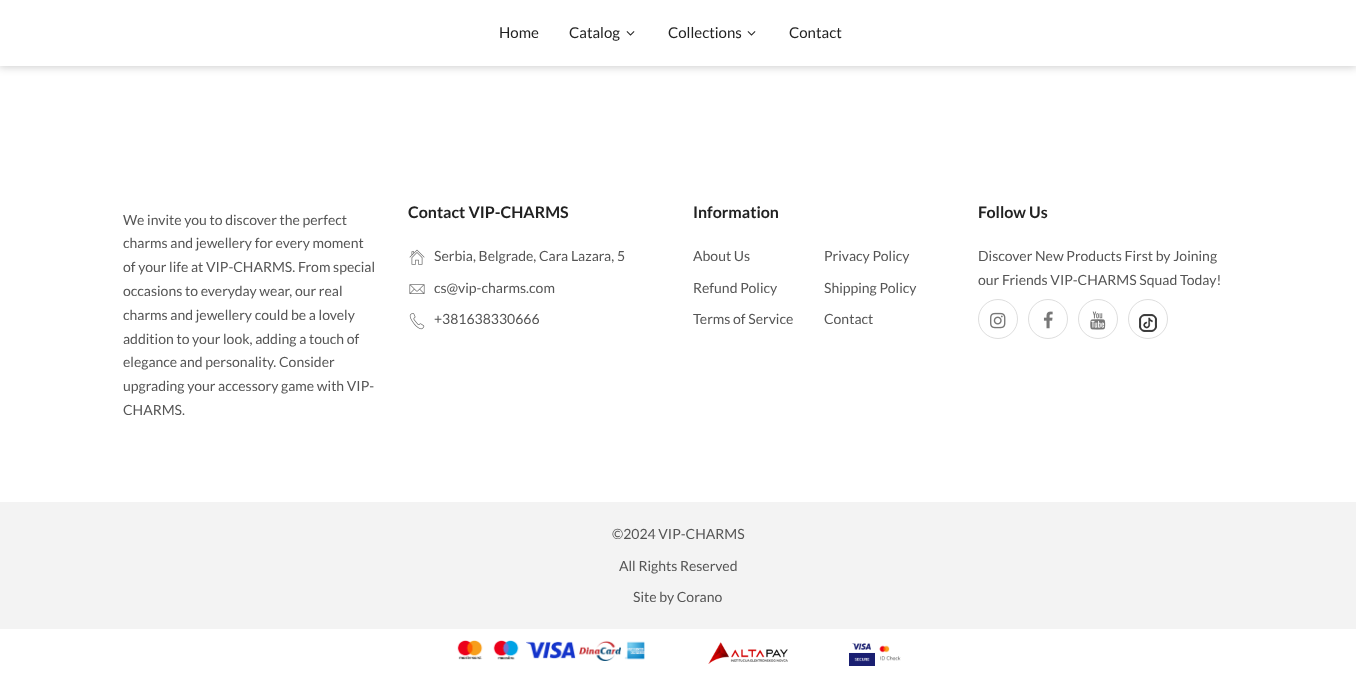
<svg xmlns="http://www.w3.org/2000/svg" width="1356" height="673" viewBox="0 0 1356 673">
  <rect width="100%" height="100%" fill="rgb(255,255,255)"/>
  <rect x="-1" y="-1" width="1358" height="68" fill="rgba(0,0,0,0.2)" filter="blur(4px)"/>
  <rect x="0" y="0" width="1356" height="66" fill="rgb(255,255,255)"/>
  <g font-family="Lato" font-size="15" fill="rgb(34,34,34)">
    <text x="499" y="38">Home</text>
    <text x="569" y="38">Catalog</text>
  </g>
  <image x="626" y="31" width="9" height="5" href="pic1.png"/>
  <text x="668" y="38" font-family="Lato" font-size="15" fill="rgb(34,34,34)">Collections</text>
  <image x="747" y="31" width="9" height="5" href="pic1.png"/>
  <text x="789" y="38" font-family="Lato" font-size="15" fill="rgb(34,34,34)">Contact</text>
  <g font-family="Lato" font-size="14" fill="rgb(85,85,85)">
    <text>
      <tspan x="123" y="225">We invite you to discover the perfect</tspan>
      <tspan x="123" y="248">charms and jewellery for every moment</tspan>
      <tspan x="123" y="272">of your life at VIP-CHARMS. From special</tspan>
      <tspan x="123" y="296">occasions to everyday wear, our real</tspan>
      <tspan x="123" y="320">charms and jewellery could be a lovely</tspan>
      <tspan x="123" y="344">addition to your look, adding a touch of</tspan>
      <tspan x="123" y="367">elegance and personality. Consider</tspan>
      <tspan x="123" y="391">upgrading your accessory game with VIP-</tspan>
      <tspan x="123" y="415">CHARMS.</tspan>
    </text>
  </g>
  <text x="408" y="218" font-family="Lato" font-size="16" font-weight="bold" fill="rgb(34,34,34)">Contact VIP-CHARMS</text>
  <image x="409" y="249" width="16" height="16" href="pic2.png"/>
  <text x="434" y="261" font-family="Lato" font-size="14" fill="rgb(85,85,85)">Serbia, Belgrade, Cara Lazara, 5</text>
  <image x="409" y="284" width="16" height="10" href="pic3.png"/>
  <text x="434" y="293" font-family="Lato" font-size="14" fill="rgb(85,85,85)">cs@vip-charms.com</text>
  <image x="409" y="313" width="16" height="17" href="pic4.png"/>
  <text x="434" y="324" font-family="Lato" font-size="14" fill="rgb(85,85,85)">+381638330666</text>
  <text x="693" y="218" font-family="Lato" font-size="16" font-weight="bold" fill="rgb(34,34,34)">Information</text>
  <g font-family="Lato" font-size="14" fill="rgb(85,85,85)">
    <text x="693" y="261">About Us</text>
    <text x="824" y="261">Privacy Policy</text>
    <text x="693" y="293">Refund Policy</text>
    <text x="824" y="293">Shipping Policy</text>
    <text x="693" y="324">Terms of Service</text>
    <text x="824" y="324">Contact</text>
  </g>
  <text x="978" y="218" font-family="Lato" font-size="16" font-weight="bold" fill="rgb(34,34,34)">Follow Us</text>
  <g font-family="Lato" font-size="14" fill="rgb(85,85,85)">
    <text>
      <tspan x="978" y="261">Discover New Products First by Joining</tspan>
      <tspan x="978" y="285">our Friends VIP-CHARMS Squad Today!</tspan>
    </text>
  </g>
  <circle cx="998" cy="319" r="19.5" fill="none" stroke="rgb(222,222,222)"/>
  <image x="990" y="312" width="16" height="17" href="pic5.png"/>
  <circle cx="1048" cy="319" r="19.5" fill="none" stroke="rgb(222,222,222)"/>
  <image x="1043" y="311" width="10" height="18" href="pic6.png"/>
  <circle cx="1098" cy="319" r="19.5" fill="none" stroke="rgb(222,222,222)"/>
  <image x="1090" y="311" width="16" height="19" href="pic7.png"/>
  <circle cx="1148" cy="319" r="19.5" fill="none" stroke="rgb(222,222,222)"/>
  <image x="1139" y="314" width="18" height="18" href="pic8.png"/>
  <rect x="0" y="502" width="1356" height="127" fill="rgb(243,243,243)"/>
  <g font-family="Lato" font-size="14" fill="rgb(85,85,85)">
    <text x="612" y="539">©2024 VIP-CHARMS</text>
    <text x="619" y="571">All Rights Reserved</text>
    <text x="633" y="602">Site by Corano</text>
  </g>
  <image x="457" y="640" width="26" height="20" href="pic9.png"/>
  <image x="493" y="640" width="26" height="20" href="pic10.png"/>
  <image x="526" y="641" width="50" height="18" href="pic11.png"/>
  <image x="579" y="640" width="42" height="21" href="pic12.png"/>
  <image x="624" y="641" width="21" height="19" href="pic13.png"/>
  <image x="708" y="642" width="80" height="22" href="pic14.png"/>
  <image x="849" y="643" width="26" height="23" href="pic15.png"/>
  <image x="879" y="645" width="22" height="16" href="pic16.png"/>
</svg>
